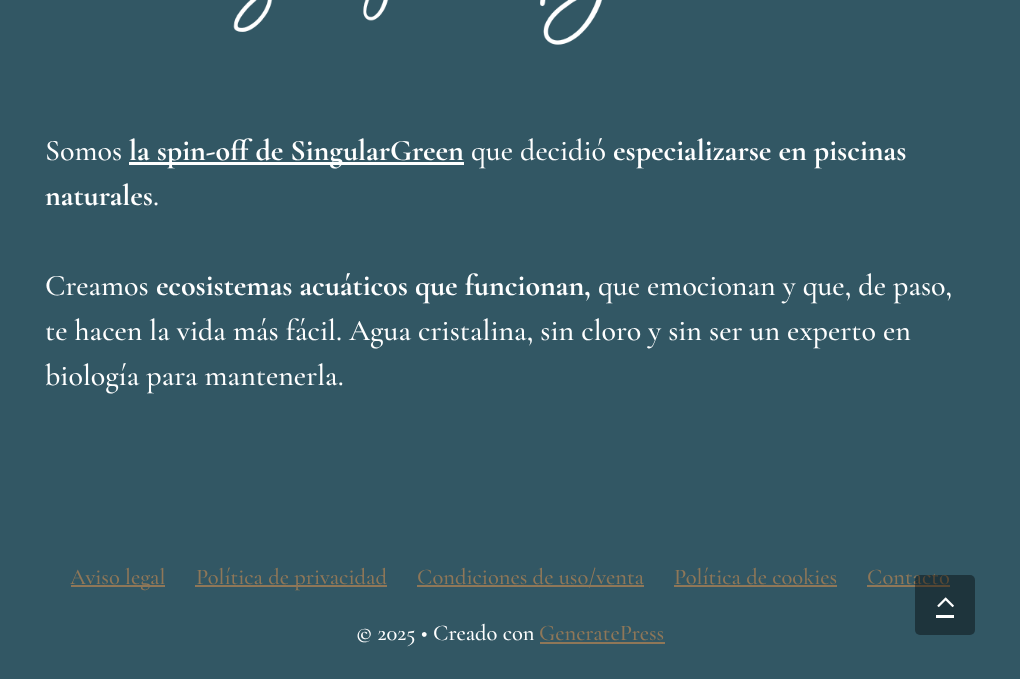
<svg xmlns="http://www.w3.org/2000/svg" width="1020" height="679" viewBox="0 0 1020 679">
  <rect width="100%" height="100%" fill="rgb(50,87,100)"/>
  <image x="233" y="0" width="370" height="45" href="pic1.png"/>
  <text x="45" y="160" font-family="Cormorant Garamond" font-size="30" font-weight="500" fill="rgb(255,255,255)">Somos</text>
  <rect x="129" y="162" width="335" height="3" fill="rgb(255,255,255)"/>
  <text x="129" y="160" font-family="Cormorant Garamond" font-size="30" font-weight="bold" fill="rgb(255,255,255)">la spin-off de SingularGreen</text>
  <text x="471" y="160" font-family="Cormorant Garamond" font-size="30" font-weight="500" fill="rgb(255,255,255)">que decidió</text>
  <g font-family="Cormorant Garamond" font-size="30" font-weight="bold" fill="rgb(255,255,255)">
    <text x="613" y="160">especializarse en piscinas</text>
    <text x="45" y="205">naturales</text>
  </g>
  <g font-family="Cormorant Garamond" font-size="30" font-weight="500" fill="rgb(255,255,255)">
    <text x="153" y="205">.</text>
    <text x="45" y="295">Creamos</text>
  </g>
  <text x="156" y="295" font-family="Cormorant Garamond" font-size="30" font-weight="bold" fill="rgb(255,255,255)">ecosistemas acuáticos que funcionan,</text>
  <g font-family="Cormorant Garamond" font-size="30" font-weight="500" fill="rgb(255,255,255)">
    <text x="598" y="295">que emocionan y que, de paso,</text>
    <text>
      <tspan x="45" y="340">te hacen la vida más fácil. Agua cristalina, sin cloro y sin ser un experto en</tspan>
      <tspan x="45" y="385">biología para mantenerla.</tspan>
    </text>
  </g>
  <rect x="71" y="585" width="94" height="2" fill="rgb(143,119,88)"/>
  <text x="70" y="584" font-family="Cormorant Garamond" font-size="22.5" font-weight="500" fill="rgb(143,119,88)">Aviso legal</text>
  <rect x="195" y="585" width="192" height="2" fill="rgb(143,119,88)"/>
  <text x="196" y="584" font-family="Cormorant Garamond" font-size="22.5" font-weight="500" fill="rgb(143,119,88)">Política de privacidad</text>
  <rect x="417" y="585" width="227" height="2" fill="rgb(143,119,88)"/>
  <g font-family="Cormorant Garamond" font-size="22.5" font-weight="500" fill="rgb(143,119,88)">
    <text x="417" y="584">Condiciones de uso/venta</text>
    <text x="674" y="584">Política de cookies</text>
  </g>
  <rect x="674" y="585" width="163" height="2" fill="rgb(143,119,88)"/>
  <text x="867" y="584" font-family="Cormorant Garamond" font-size="22.5" font-weight="500" fill="rgb(143,119,88)">Contacto</text>
  <rect x="867" y="585" width="83" height="2" fill="rgb(143,119,88)"/>
  <text x="356" y="640" font-family="Cormorant Garamond" font-size="22.5" font-weight="500" fill="rgb(255,255,255)">© 2025 • Creado con</text>
  <text x="539" y="640" font-family="Cormorant Garamond" font-size="22.5" font-weight="500" fill="rgb(143,119,88)">GeneratePress</text>
  <rect x="540" y="642" width="125" height="2" fill="rgb(143,119,88)"/>
  <rect x="915" y="575" width="60" height="60" rx="5" fill="rgba(0,0,0,0.4)"/>
  <image x="937" y="597" width="17" height="11" href="pic2.png"/>
  <rect x="936" y="615" width="18" height="3" fill="rgb(255,255,255)"/>
</svg>
